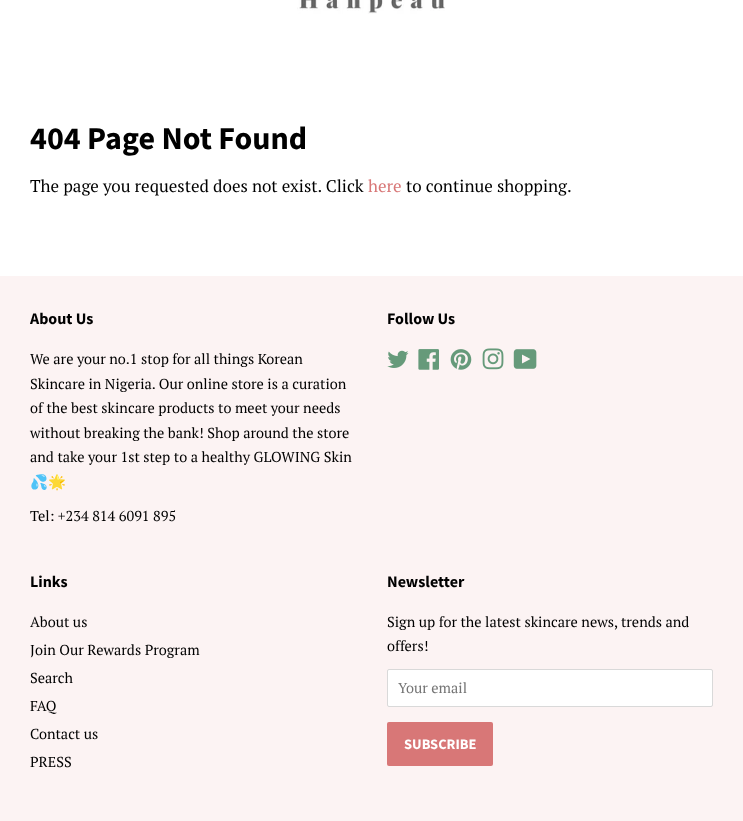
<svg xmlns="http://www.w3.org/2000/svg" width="743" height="821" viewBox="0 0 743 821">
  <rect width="100%" height="100%" fill="rgb(255,255,255)"/>
  <image x="297" y="0" width="148" height="14" href="pic1.png"/>
  <text x="30" y="149" font-family="Source Sans Pro" font-size="32" font-weight="bold" fill="rgb(0,0,0)">404 Page Not Found</text>
  <text x="30" y="192" font-family="PT Serif" font-size="17" fill="rgb(0,0,0)">The page you requested does not exist. Click</text>
  <text x="368" y="192" font-family="PT Serif" font-size="17" fill="rgb(216,119,119)">here</text>
  <text x="406" y="192" font-family="PT Serif" font-size="17" fill="rgb(0,0,0)">to continue shopping.</text>
  <rect x="0" y="276" width="743" height="545" fill="rgb(252,243,243)"/>
  <text x="30" y="324" font-family="Source Sans Pro" font-size="16" font-weight="bold" fill="rgb(0,0,0)">About Us</text>
  <g font-family="PT Serif" font-size="14.45" fill="rgb(0,0,0)">
    <text>
      <tspan x="30" y="364">We are your no.1 stop for all things Korean</tspan>
      <tspan x="30" y="389">Skincare in Nigeria. Our online store is a curation</tspan>
      <tspan x="30" y="413">of the best skincare products to meet your needs</tspan>
      <tspan x="30" y="438">without breaking the bank! Shop around the store</tspan>
      <tspan x="30" y="462">and take your 1st step to a healthy GLOWING Skin</tspan>
    </text>
  </g>
  <text x="30" y="487" font-family="Noto Color Emoji" font-size="14.45" fill="rgb(0,0,0)">💦🌟</text>
  <text x="30" y="521" font-family="PT Serif" font-size="14.45" fill="rgb(0,0,0)">Tel: +234 814 6091 895</text>
  <text x="387" y="324" font-family="Source Sans Pro" font-size="16" font-weight="bold" fill="rgb(0,0,0)">Follow Us</text>
  <image x="387" y="350" width="22" height="18" href="pic2.png"/>
  <image x="418" y="349" width="21" height="21" href="pic3.png"/>
  <image x="450" y="349" width="22" height="21" href="pic4.png"/>
  <image x="482" y="348" width="22" height="22" href="pic5.png"/>
  <image x="513" y="349" width="24" height="20" href="pic6.png"/>
  <text x="30" y="587" font-family="Source Sans Pro" font-size="16" font-weight="bold" fill="rgb(0,0,0)">Links</text>
  <g font-family="PT Serif" font-size="14.45" fill="rgb(0,0,0)">
    <text>
      <tspan x="30" y="627">About us</tspan>
      <tspan x="30" y="655">Join Our Rewards Program</tspan>
      <tspan x="30" y="683">Search</tspan>
      <tspan x="30" y="711">FAQ</tspan>
      <tspan x="30" y="739">Contact us</tspan>
      <tspan x="30" y="767">PRESS</tspan>
    </text>
  </g>
  <text x="387" y="587" font-family="Source Sans Pro" font-size="16" font-weight="bold" fill="rgb(0,0,0)">Newsletter</text>
  <g font-family="PT Serif" font-size="14.45" fill="rgb(0,0,0)">
    <text>
      <tspan x="387" y="627">Sign up for the latest skincare news, trends and</tspan>
      <tspan x="387" y="651">offers!</tspan>
    </text>
  </g>
  <rect x="387.5" y="669.5" width="325" height="37" rx="1.5" fill="rgb(255,255,255)" stroke="rgb(217,217,217)"/>
  <text x="398" y="693" font-family="PT Serif" font-size="14.45" fill="rgb(117,117,117)">Your email</text>
  <rect x="387" y="722" width="106" height="44" rx="2" fill="rgb(216,119,119)"/>
  <text x="404" y="749" font-family="Source Sans Pro" font-size="14.45" font-weight="bold" fill="rgb(255,255,255)">SUBSCRIBE</text>
</svg>
